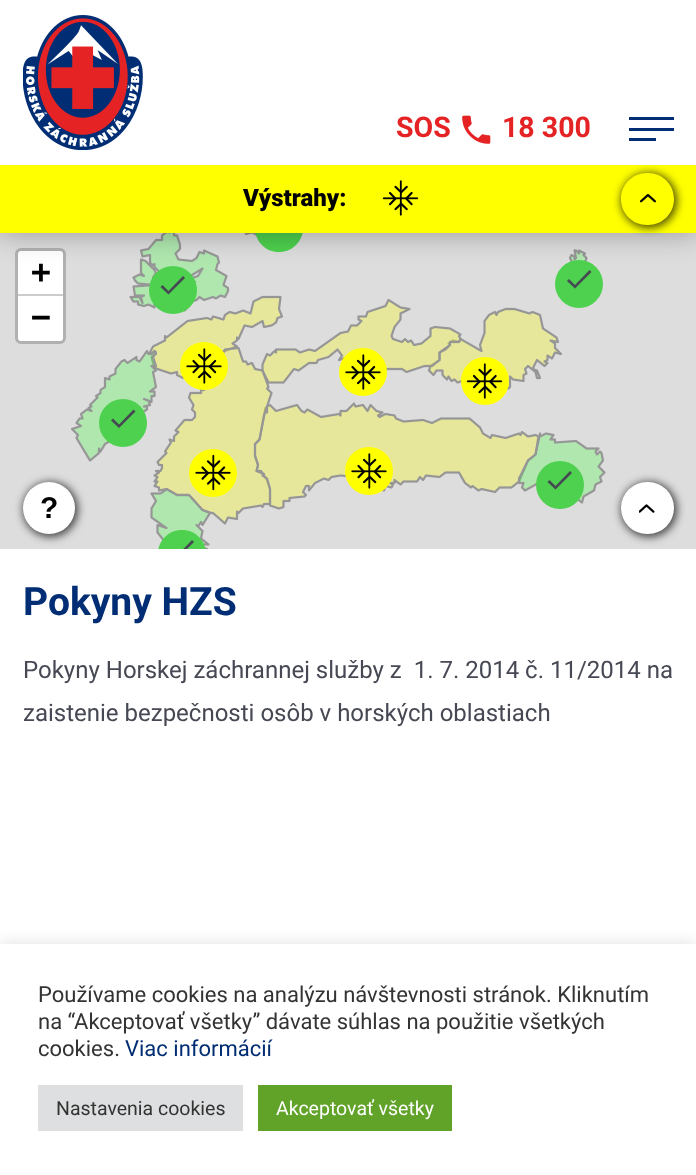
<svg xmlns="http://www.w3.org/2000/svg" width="696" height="1175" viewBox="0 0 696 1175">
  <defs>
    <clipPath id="clip1"><path d="M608 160H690V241H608ZM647 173H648C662.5 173 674 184.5 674 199C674 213.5 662.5 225 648 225H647C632.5 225 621 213.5 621 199C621 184.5 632.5 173 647 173Z" clip-rule="evenodd"/></clipPath>
    <clipPath id="clip2"><rect x="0" y="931" width="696" height="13"/></clipPath>
  </defs>
  <rect width="100%" height="100%" fill="rgb(221,221,221)"/>
  <rect x="16.5" y="249.5" width="48" height="93" rx="4.5" fill="none" stroke="rgb(177,177,177)" stroke-width="3"/>
  <path d="M21 251H60C61.5 251 63 252.5 63 254V296H18V254C18 252.5 19.5 251 21 251Z" fill="rgb(255,255,255)"/>
  <image x="71" y="233" width="535" height="316" href="pic5.png"/>
  <path d="M255 233H303V228C303 241.5 292.5 252 279 252C265.5 252 255 241.5 255 228Z" fill="rgb(78,209,78)"/>
  <circle cx="173" cy="290" r="24" fill="rgb(78,209,78)"/>
  <path d="M168.5 291L183 276L185 278L168.5 294.5L160.5 287L162.5 285Z" fill="rgb(70,72,83)"/>
  <circle cx="579" cy="284" r="24" fill="rgb(78,209,78)"/>
  <path d="M575 285L589.5 270L591.5 272L575 288.5L567 281L569 279Z" fill="rgb(70,72,83)"/>
  <rect x="-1" y="164" width="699" height="70" fill="rgba(0,0,0,0.3)" filter="blur(14px)"/>
  <rect x="0" y="165" width="696" height="68" fill="rgb(255,255,0)"/>
  <g clip-path="url(#clip1)">
    <rect x="621" y="173" width="56" height="55" rx="27.5" fill="rgba(0,0,0,0.7)" filter="blur(4px)"/>
  </g>
  <rect x="0" y="0" width="696" height="165" fill="rgb(255,255,255)"/>
  <image x="23" y="15" width="120" height="135" href="pic1.png"/>
  <text x="396" y="137" font-family="Roboto" font-size="28.5" font-weight="bold" fill="rgb(229,35,37)">SOS</text>
  <image x="462" y="115" width="29" height="29" href="pic2.png"/>
  <text x="502" y="137" font-family="Roboto" font-size="28.5" font-weight="bold" fill="rgb(229,35,37)">18 300</text>
  <rect x="629" y="138" width="27" height="3" fill="rgb(0,45,115)"/>
  <rect x="629" y="117" width="45" height="3" fill="rgb(0,45,115)"/>
  <rect x="629" y="128" width="45" height="3" fill="rgb(0,45,115)"/>
  <text x="243" y="206" font-family="Roboto" font-size="24" font-weight="900" fill="rgb(0,0,0)">Výstrahy:</text>
  <image x="382" y="180" width="37" height="36" href="pic3.png"/>
  <image x="639" y="194" width="17" height="9" href="pic4.png"/>
  <rect x="18" y="294" width="45" height="2" fill="rgb(204,204,204)"/>
  <text x="31" y="283" font-family="DejaVu Sans Mono" font-size="33" font-weight="bold" fill="rgb(0,0,0)">+</text>
  <path d="M18 296H63V338C63 339.5 61.5 341 60 341H21C19.5 341 18 339.5 18 338Z" fill="rgb(255,255,255)"/>
  <text x="31" y="328" font-family="DejaVu Sans Mono" font-size="33" font-weight="bold" fill="rgb(0,0,0)">−</text>
  <circle cx="204" cy="366" r="24" fill="rgb(255,255,0)"/>
  <image x="186" y="348" width="36" height="36" href="pic6.png"/>
  <circle cx="363" cy="372" r="24" fill="rgb(255,255,0)"/>
  <image x="345" y="354" width="36" height="36" href="pic7.png"/>
  <circle cx="485" cy="381" r="24" fill="rgb(255,255,0)"/>
  <image x="466" y="363" width="37" height="36" href="pic8.png"/>
  <circle cx="123" cy="423" r="24" fill="rgb(78,209,78)"/>
  <path d="M119 424.5L133.5 409.5L135.5 411.5L119 428L111 420.5L113 418.5Z" fill="rgb(70,72,83)"/>
  <circle cx="213" cy="473" r="24" fill="rgb(255,255,0)"/>
  <image x="195" y="454" width="36" height="37" href="pic9.png"/>
  <circle cx="369" cy="471" r="24" fill="rgb(255,255,0)"/>
  <image x="351" y="453" width="36" height="36" href="pic10.png"/>
  <circle cx="560" cy="485" r="24" fill="rgb(78,209,78)"/>
  <path d="M555.5 486L570 471L572 473L555.5 489.5L547.5 482L549.5 480Z" fill="rgb(70,72,83)"/>
  <path d="M182 530C195.5 530 206 540.5 206 554V549H158V554C158 540.5 168.5 530 182 530Z" fill="rgb(78,209,78)"/>
  <path d="M177.5 555L192 540L194 542L177.5 558.5L169.5 551L171.5 549Z" fill="rgb(70,72,83)"/>
  <rect x="23" y="482" width="55" height="55" rx="27.5" fill="rgba(0,0,0,0.7)" filter="blur(4px)"/>
  <circle cx="49" cy="508" r="26" fill="rgb(255,255,255)"/>
  <text x="40" y="518" font-family="Liberation Sans" font-size="30" font-weight="bold" fill="rgb(0,0,0)">?</text>
  <rect x="621" y="482" width="56" height="55" rx="27.5" fill="rgba(0,0,0,0.7)" filter="blur(4px)"/>
  <rect x="621" y="482" width="53" height="52" rx="26" fill="rgb(255,255,255)"/>
  <image x="639" y="504" width="16" height="9" href="pic11.png"/>
  <rect x="0" y="549" width="696" height="626" fill="rgb(255,255,255)"/>
  <text x="23" y="615" font-family="Roboto" font-size="39" font-weight="bold" fill="rgb(0,45,115)">Pokyny HZS</text>
  <g font-family="Roboto" font-size="24" fill="rgb(70,72,83)">
    <text xml:space="preserve"><tspan x="23" y="678">Pokyny Horskej záchrannej služby z  1. 7. 2014 č. 11/2014 na</tspan><tspan x="23" y="721">zaistenie bezpečnosti osôb v horských oblastiach</tspan></text>
  </g>
  <g clip-path="url(#clip2)">
    <rect x="0" y="942" width="696" height="233" fill="rgba(172,171,171,0.3)" filter="blur(7.5px)"/>
  </g>
  <g font-family="Roboto" font-size="22" fill="rgb(51,51,51)">
    <text>
      <tspan x="38" y="1002">Používame cookies na analýzu návštevnosti stránok. Kliknutím</tspan>
      <tspan x="38" y="1029">na “Akceptovať všetky” dávate súhlas na použitie všetkých</tspan>
      <tspan x="38" y="1056">cookies.</tspan>
    </text>
  </g>
  <text x="125" y="1056" font-family="Roboto" font-size="22" fill="rgb(0,45,115)">Viac informácií</text>
  <rect x="38" y="1085" width="205" height="46" fill="rgb(222,223,224)"/>
  <text x="56" y="1115" font-family="Roboto" font-size="19.5" fill="rgb(51,51,51)">Nastavenia cookies</text>
  <rect x="258" y="1085" width="194" height="46" fill="rgb(97,162,41)"/>
  <text x="276" y="1115" font-family="Roboto" font-size="19.5" fill="rgb(255,255,255)">Akceptovať všetky</text>
</svg>
